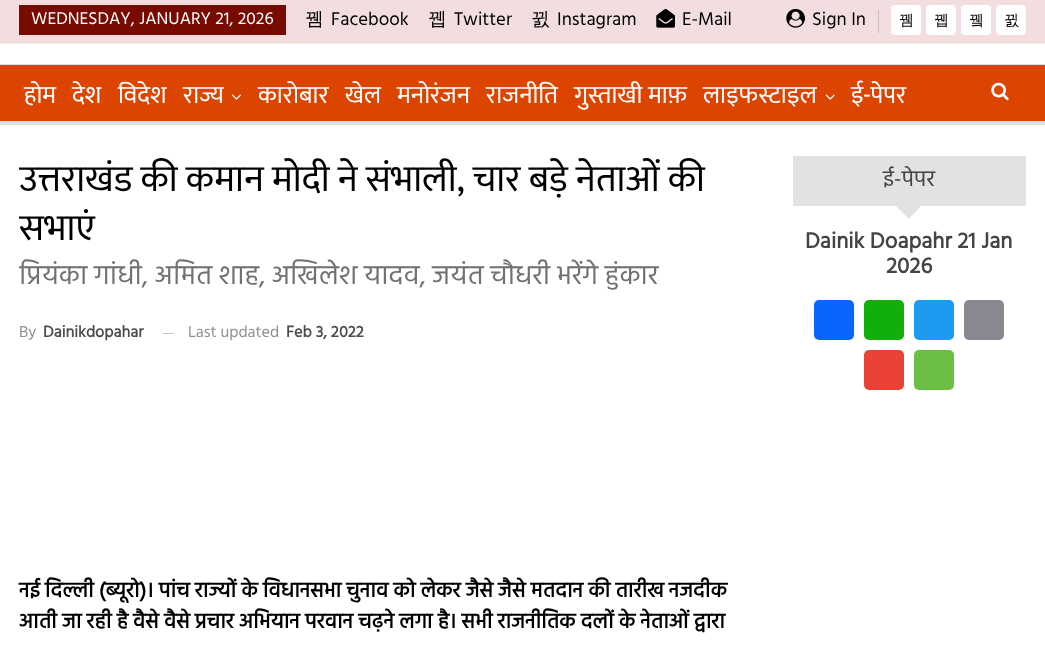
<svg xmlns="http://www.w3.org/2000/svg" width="1045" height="652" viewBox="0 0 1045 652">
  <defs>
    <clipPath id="clip1"><rect x="19" y="40" width="957" height="85"/></clipPath>
    <clipPath id="clip2"><rect x="19" y="156" width="736" height="194"/></clipPath>
  </defs>
  <rect width="100%" height="100%" fill="rgb(255,255,255)"/>
  <rect x="0" y="0" width="1045" height="43" fill="rgb(242,222,222)"/>
  <rect x="0" y="43" width="1045" height="1" fill="rgb(239,239,239)"/>
  <rect x="19" y="5" width="267" height="30" fill="rgb(119,11,0)"/>
  <text x="31" y="24" font-family="Hind" font-size="17.5" fill="rgb(255,255,255)">WEDNESDAY, JANUARY 21, 2026</text>
  <text x="305" y="25" font-family="WenQuanYi Zen Hei" font-size="18.75" font-weight="500" fill="rgb(0,0,0)">뀀</text>
  <text x="331" y="25" font-family="Hind" font-size="18.75" fill="rgb(0,0,0)">Facebook</text>
  <text x="428" y="25" font-family="WenQuanYi Zen Hei" font-size="18.75" font-weight="500" fill="rgb(0,0,0)">뀁</text>
  <text x="454" y="25" font-family="Hind" font-size="18.75" fill="rgb(0,0,0)">Twitter</text>
  <text x="531" y="25" font-family="WenQuanYi Zen Hei" font-size="18.75" font-weight="500" fill="rgb(0,0,0)">뀘</text>
  <text x="557" y="25" font-family="Hind" font-size="18.75" fill="rgb(0,0,0)">Instagram</text>
  <image x="656" y="9" width="19" height="19" href="pic1.png"/>
  <text x="682" y="25" font-family="Hind" font-size="18.75" fill="rgb(0,0,0)">E-Mail</text>
  <image x="786" y="8" width="19" height="20" href="pic2.png"/>
  <text x="812" y="25" font-family="Hind" font-size="18.75" fill="rgb(0,0,0)">Sign In</text>
  <rect x="878" y="10" width="1" height="23" fill="rgb(206,189,189)"/>
  <rect x="891" y="5" width="30" height="30" rx="4" fill="rgb(255,255,255)"/>
  <text x="899" y="25" font-family="WenQuanYi Zen Hei" font-size="15" font-weight="500" fill="rgb(0,0,0)">뀀</text>
  <rect x="926" y="5" width="30" height="30" rx="4" fill="rgb(255,255,255)"/>
  <text x="934" y="25" font-family="WenQuanYi Zen Hei" font-size="15" font-weight="500" fill="rgb(0,0,0)">뀁</text>
  <rect x="961" y="5" width="30" height="30" rx="4" fill="rgb(255,255,255)"/>
  <text x="969" y="25" font-family="WenQuanYi Zen Hei" font-size="15" font-weight="500" fill="rgb(0,0,0)">뀈</text>
  <rect x="996" y="5" width="30" height="30" rx="4" fill="rgb(255,255,255)"/>
  <text x="1004" y="25" font-family="WenQuanYi Zen Hei" font-size="15" font-weight="500" fill="rgb(0,0,0)">뀘</text>
  <rect x="0" y="65" width="1045" height="56" fill="rgb(219,69,0)"/>
  <rect x="0" y="64" width="1045" height="1" fill="rgb(222,222,222)"/>
  <rect x="0" y="121" width="1045" height="4" fill="rgb(222,222,222)"/>
  <g clip-path="url(#clip1)">
    <text x="24" y="103" font-family="Mukta" font-size="25" fill="rgb(255,255,255)">होम</text>
  </g>
  <g font-family="Mukta" font-size="25" fill="rgb(255,255,255)">
    <text x="72" y="103">देश</text>
    <text x="118" y="103">विदेश</text>
    <text x="183" y="103">राज्य</text>
  </g>
  <image x="232" y="94" width="9" height="6" href="pic3.png"/>
  <g font-family="Mukta" font-size="25" fill="rgb(255,255,255)">
    <text x="258" y="103">कारोबार</text>
    <text x="345" y="103">खेल</text>
    <text x="397" y="103">मनोरंजन</text>
    <text x="486" y="103">राजनीति</text>
    <text x="574" y="103">गुस्ताखी माफ़</text>
    <text x="703" y="103">लाइफस्टाइल</text>
  </g>
  <image x="825" y="94" width="10" height="6" href="pic4.png"/>
  <text x="851" y="103" font-family="Mukta" font-size="25" fill="rgb(255,255,255)">ई-पेपर</text>
  <image x="991" y="82" width="18" height="19" href="pic5.png"/>
  <g clip-path="url(#clip2)">
    <g font-family="Mukta" font-size="37.5" fill="rgb(0,0,0)">
      <text>
        <tspan x="19" y="191" word-spacing="-0.25">उत्तराखंड की कमान मोदी ने संभाली, चार बड़े नेताओं की</tspan>
        <tspan x="19" y="240">सभाएं</tspan>
      </text>
    </g>
    <text x="19" y="284" font-family="Hind" font-size="27.5" fill="rgb(113,113,113)">प्रियंका गांधी, अमित शाह, अखिलेश यादव, जयंत चौधरी भरेंगे हुंकार</text>
  </g>
  <text x="19" y="337" font-family="Hind" font-size="16.25" fill="rgb(143,143,143)">By</text>
  <text x="43" y="337" font-family="Hind" font-size="16.25" font-weight="bold" fill="rgb(77,77,77)">Dainikdopahar</text>
  <rect x="163" y="333" width="11" height="1" fill="rgb(196,196,196)"/>
  <text x="188" y="337" font-family="Hind" font-size="16.25" fill="rgb(143,143,143)">Last updated</text>
  <text x="286" y="337" font-family="Hind" font-size="16.25" font-weight="bold" fill="rgb(77,77,77)">Feb 3, 2022</text>
  <g font-family="Hind" font-size="21.25" font-weight="bold" fill="rgb(0,0,0)">
    <text>
      <tspan x="19" y="597">नई दिल्ली (ब्यूरो)। पांच राज्यों के विधानसभा चुनाव को लेकर जैसे जैसे मतदान की तारीख नजदीक</tspan>
      <tspan x="19" y="628">आती जा रही है वैसे वैसे प्रचार अभियान परवान चढ़ने लगा है। सभी राजनीतिक दलों के नेताओं द्वारा</tspan>
    </text>
  </g>
  <rect x="793" y="156" width="233" height="50" fill="rgb(226,226,226)"/>
  <text x="883" y="186" font-family="Hind" font-size="22.5" fill="rgb(68,68,68)">ई-पेपर</text>
  <path d="M896 206H921L909 219Z" fill="rgb(226,226,226)"/>
  <g font-family="Hind" font-size="22.5" font-weight="bold" fill="rgb(68,68,68)">
    <text x="805" y="248">Dainik Doapahr 21 Jan</text>
    <text x="886" y="273">2026</text>
  </g>
  <rect x="814" y="300" width="40" height="40" rx="5" fill="rgb(8,102,255)"/>
  <rect x="864" y="300" width="40" height="40" rx="5" fill="rgb(18,175,10)"/>
  <rect x="914" y="300" width="40" height="40" rx="5" fill="rgb(29,155,240)"/>
  <rect x="964" y="300" width="40" height="40" rx="5" fill="rgb(136,137,144)"/>
  <rect x="864" y="350" width="40" height="40" rx="5" fill="rgb(234,67,53)"/>
  <rect x="914" y="350" width="40" height="40" rx="5" fill="rgb(108,190,69)"/>
</svg>
